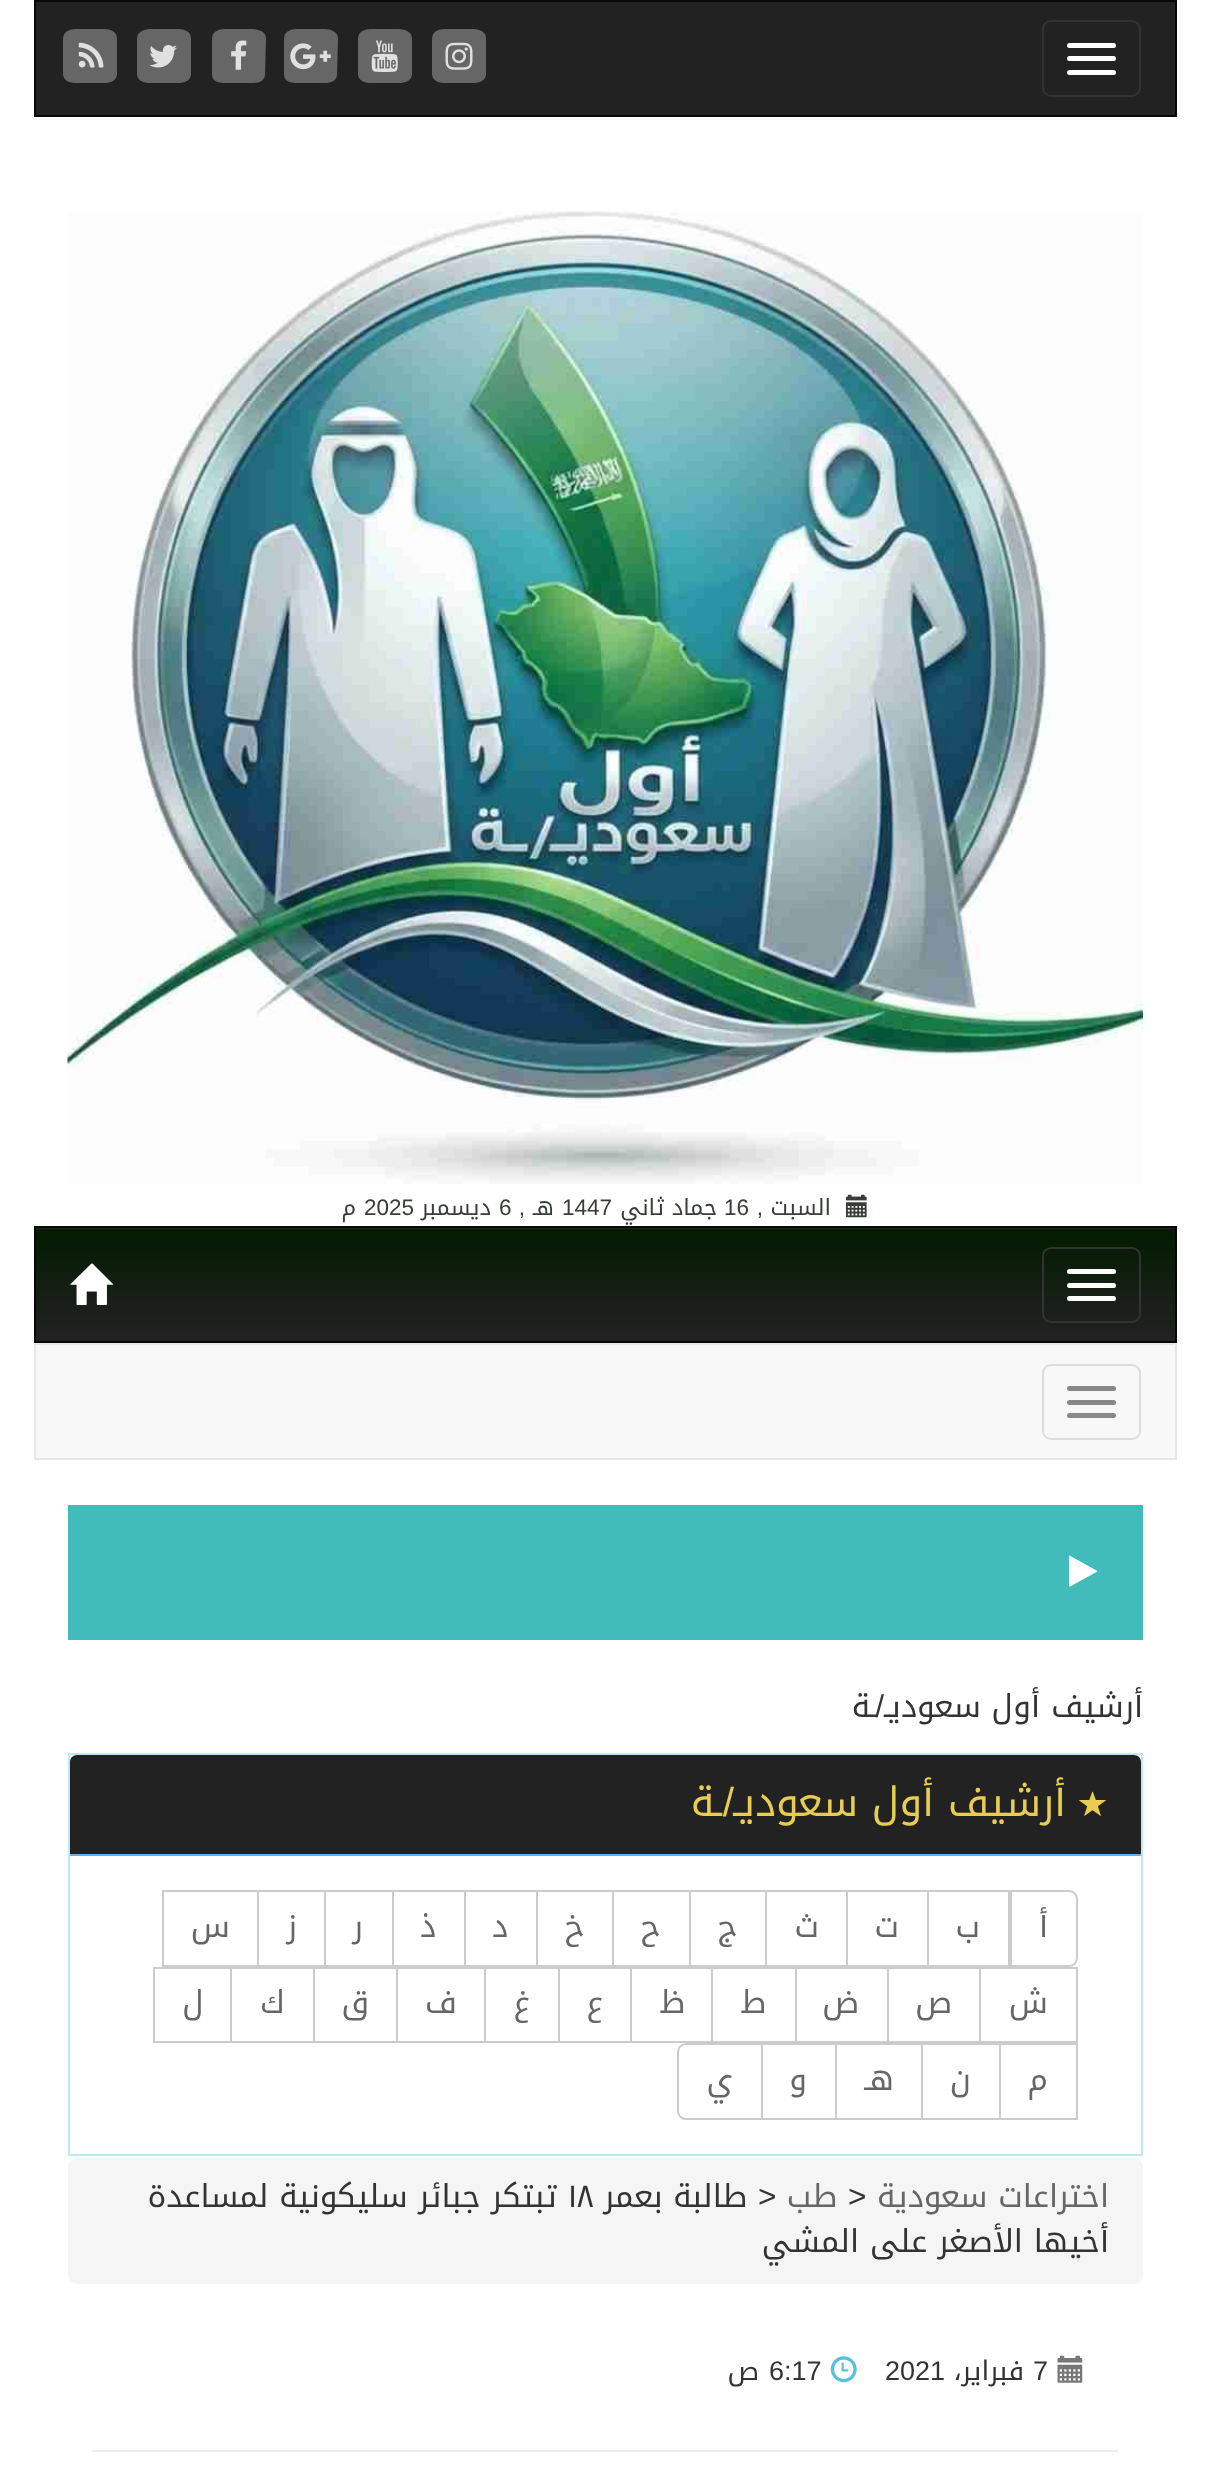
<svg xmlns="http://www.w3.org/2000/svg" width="1210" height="2491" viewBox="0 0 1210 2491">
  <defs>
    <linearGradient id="g1" gradientUnits="userSpaceOnUse" x1="605" y1="1116" x2="605" y2="1229"><stop offset="0" stop-color="rgb(2,27,0)"/><stop offset="1" stop-color="rgb(34,34,34)"/></linearGradient>
    <linearGradient id="g2" gradientUnits="userSpaceOnUse" x1="605" y1="1229" x2="605" y2="1341"><stop offset="0" stop-color="rgb(2,27,0)"/><stop offset="1" stop-color="rgb(34,34,34)"/></linearGradient>
  </defs>
  <rect width="100%" height="100%" fill="rgb(255,255,255)"/>
  <rect x="35" y="1" width="1141" height="115" fill="rgb(34,34,34)" stroke="rgb(8,8,8)" stroke-width="2"/>
  <rect x="1043" y="21" width="97" height="75" rx="8" fill="none" stroke="rgb(51,51,51)" stroke-width="2"/>
  <rect x="1067" y="43" width="49" height="5" rx="2.5" fill="rgb(255,255,255)"/>
  <rect x="1067" y="56" width="49" height="5" rx="2.5" fill="rgb(255,255,255)"/>
  <rect x="1067" y="70" width="49" height="5" rx="2.5" fill="rgb(255,255,255)"/>
  <path d="M486 39V75C484 83 477 83 470 83H448C441 83 434 83 432 75V39C432 30 440 29 448 29H470C478 29 486 30 486 39Z" fill="rgb(102,102,102)"/>
  <image x="445" y="42" width="28" height="28" href="pic1.png"/>
  <path d="M412 39V75C410 83 403 83 396 83H374C367 83 360 83 358 75V39C358 30 366 29 374 29H396C403 29 412 30 412 39Z" fill="rgb(102,102,102)"/>
  <image x="371" y="40" width="27" height="32" href="pic2.png"/>
  <path d="M338 39L337 75C336 83 328 83 322 83H299C293 83 285 83 284 75V39C284 30 292 29 299 29H322C329 29 338 30 338 39Z" fill="rgb(102,102,102)"/>
  <image x="290" y="43" width="41" height="27" href="pic3.png"/>
  <path d="M266 39L265 75C264 83 256 83 250 83H227C221 83 213 83 212 75V39C212 30 220 29 227 29H250C257 29 266 30 266 39Z" fill="rgb(102,102,102)"/>
  <image x="231" y="40" width="16" height="30" href="pic4.png"/>
  <path d="M191 39V75C189 83 182 83 176 83H153C146 83 139 83 137 75V39C137 30 146 29 153 29H176C183 29 191 30 191 39Z" fill="rgb(102,102,102)"/>
  <image x="149" y="45" width="28" height="23" href="pic5.png"/>
  <path d="M117 39V75C115 83 108 83 101 83H79C72 83 65 83 63 75V39C63 30 71 29 79 29H101C109 29 117 30 117 39Z" fill="rgb(102,102,102)"/>
  <image x="78" y="42" width="26" height="26" href="pic6.png"/>
  <image x="67" y="211" width="1076" height="973" href="pic7.png"/>
  <image x="846" y="1194" width="21" height="24" href="pic8.png"/>
  <text x="831" y="1215" font-family="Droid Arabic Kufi" font-size="22.5" direction="rtl" fill="rgb(55,62,55)">السبت</text>
  <text x="763" y="1215" font-family="Liberation Sans" font-size="22.5" direction="rtl" fill="rgb(55,62,55)">,</text>
  <text x="724" y="1215" font-family="Liberation Sans" font-size="22.5" fill="rgb(55,62,55)">16</text>
  <text x="717" y="1215" font-family="Droid Arabic Kufi" font-size="22.5" direction="rtl" fill="rgb(55,62,55)">جماد ثاني</text>
  <text x="562" y="1215" font-family="Liberation Sans" font-size="22.5" fill="rgb(55,62,55)">1447</text>
  <text x="554" y="1215" font-family="Droid Arabic Kufi" font-size="22.5" direction="rtl" fill="rgb(55,62,55)">هـ</text>
  <text x="525" y="1215" font-family="Liberation Sans" font-size="22.5" direction="rtl" fill="rgb(55,62,55)">,</text>
  <text x="499" y="1215" font-family="Liberation Sans" font-size="22.5" fill="rgb(55,62,55)">6</text>
  <text x="491" y="1215" font-family="Droid Arabic Kufi" font-size="22.5" direction="rtl" fill="rgb(55,62,55)">ديسمبر</text>
  <text x="364" y="1215" font-family="Liberation Sans" font-size="22.5" fill="rgb(55,62,55)">2025</text>
  <text x="356" y="1215" font-family="Droid Arabic Kufi" font-size="22.5" direction="rtl" fill="rgb(55,62,55)">م</text>
  <rect x="34" y="1228" width="1143" height="1" fill="url(#g1)"/>
  <rect x="36" y="1229" width="1139" height="112" fill="url(#g2)"/>
  <rect x="35" y="1227" width="1141" height="115" fill="none" stroke="rgb(8,8,8)" stroke-width="2"/>
  <rect x="1043" y="1248" width="97" height="74" rx="8" fill="none" stroke="rgb(51,51,51)" stroke-width="2"/>
  <rect x="1067" y="1269" width="49" height="5" rx="2.5" fill="rgb(255,255,255)"/>
  <rect x="1067" y="1283" width="49" height="5" rx="2.5" fill="rgb(255,255,255)"/>
  <rect x="1067" y="1296" width="49" height="5" rx="2.5" fill="rgb(255,255,255)"/>
  <image x="70" y="1263" width="44" height="42" href="pic9.png"/>
  <rect x="35" y="1344" width="1141" height="115" fill="rgb(248,248,248)" stroke="rgb(231,231,231)" stroke-width="2"/>
  <rect x="1043" y="1365" width="97" height="74" rx="8" fill="none" stroke="rgb(221,221,221)" stroke-width="2"/>
  <rect x="1067" y="1386" width="49" height="5" rx="2.5" fill="rgb(136,136,136)"/>
  <rect x="1067" y="1400" width="49" height="5" rx="2.5" fill="rgb(136,136,136)"/>
  <rect x="1067" y="1413" width="49" height="5" rx="2.5" fill="rgb(136,136,136)"/>
  <rect x="68" y="1505" width="1075" height="135" fill="rgb(65,188,186)"/>
  <path d="M1096.5 1572L1074.5 1584C1074 1584.5 1069.5 1587.5 1069 1586.5V1556L1069.5 1555.5L1096.5 1570.5L1097 1571Z" fill="rgb(255,255,255)"/>
  <g font-family="Droid Arabic Kufi" font-size="31.5" direction="rtl" fill="rgb(51,51,51)">
    <text x="1143" y="1717">أرشيف</text>
    <text x="876" y="1717">ـة</text>
  </g>
  <text x="884" y="1717" font-family="Liberation Sans" font-size="31.5" direction="rtl" fill="rgb(51,51,51)">/</text>
  <text x="1040" y="1717" font-family="Droid Arabic Kufi" font-size="31.5" direction="rtl" fill="rgb(51,51,51)">أول سعوديـ</text>
  <rect x="69" y="1754" width="1073" height="401" fill="none" stroke="rgb(188,232,241)" stroke-width="2"/>
  <path d="M77 1755H1134C1138 1755 1141 1758 1141 1762V1856H70V1762C70 1758 73 1755 77 1755Z" fill="rgb(34,34,34)"/>
  <rect x="70" y="1854" width="1071" height="2" fill="rgb(102,175,233)"/>
  <image x="1079" y="1791" width="27" height="25" href="pic10.png"/>
  <g font-family="Droid Arabic Kufi" font-size="40.5" direction="rtl" fill="rgb(232,205,81)">
    <text x="1066" y="1816">أرشيف</text>
    <text x="722" y="1816">ـة</text>
  </g>
  <text x="734" y="1816" font-family="Liberation Sans" font-size="40.5" direction="rtl" fill="rgb(232,205,81)">/</text>
  <text x="934" y="1816" font-family="Droid Arabic Kufi" font-size="40.5" direction="rtl" fill="rgb(232,205,81)">أول سعوديـ</text>
  <path d="M1011 1891H1069C1073.5 1891 1077 1894.5 1077 1899V1958C1077 1962.5 1073.5 1966 1069 1966H1011Z" fill="none" stroke="rgb(204,204,204)" stroke-width="2"/>
  <text x="1048" y="1937" font-family="Droid Arabic Kufi" font-size="31.5" direction="rtl" fill="rgb(102,102,102)">أ</text>
  <rect x="928" y="1891" width="81" height="75" fill="none" stroke="rgb(204,204,204)" stroke-width="2"/>
  <text x="980" y="1937" font-family="Droid Arabic Kufi" font-size="31.5" direction="rtl" fill="rgb(102,102,102)">ب</text>
  <rect x="847" y="1891" width="81" height="75" fill="none" stroke="rgb(204,204,204)" stroke-width="2"/>
  <text x="899" y="1937" font-family="Droid Arabic Kufi" font-size="31.5" direction="rtl" fill="rgb(102,102,102)">ت</text>
  <rect x="766" y="1891" width="81" height="75" fill="none" stroke="rgb(204,204,204)" stroke-width="2"/>
  <text x="819" y="1937" font-family="Droid Arabic Kufi" font-size="31.5" direction="rtl" fill="rgb(102,102,102)">ث</text>
  <rect x="690" y="1891" width="76" height="75" fill="none" stroke="rgb(204,204,204)" stroke-width="2"/>
  <text x="738" y="1937" font-family="Droid Arabic Kufi" font-size="31.5" direction="rtl" fill="rgb(102,102,102)">ج</text>
  <rect x="613" y="1891" width="77" height="75" fill="none" stroke="rgb(204,204,204)" stroke-width="2"/>
  <text x="661" y="1937" font-family="Droid Arabic Kufi" font-size="31.5" direction="rtl" fill="rgb(102,102,102)">ح</text>
  <rect x="537" y="1891" width="76" height="75" fill="none" stroke="rgb(204,204,204)" stroke-width="2"/>
  <text x="585" y="1937" font-family="Droid Arabic Kufi" font-size="31.5" direction="rtl" fill="rgb(102,102,102)">خ</text>
  <rect x="465" y="1891" width="72" height="75" fill="none" stroke="rgb(204,204,204)" stroke-width="2"/>
  <text x="508" y="1937" font-family="Droid Arabic Kufi" font-size="31.5" direction="rtl" fill="rgb(102,102,102)">د</text>
  <rect x="393" y="1891" width="72" height="75" fill="none" stroke="rgb(204,204,204)" stroke-width="2"/>
  <text x="436" y="1937" font-family="Droid Arabic Kufi" font-size="31.5" direction="rtl" fill="rgb(102,102,102)">ذ</text>
  <rect x="325" y="1891" width="68" height="75" fill="none" stroke="rgb(204,204,204)" stroke-width="2"/>
  <text x="363" y="1937" font-family="Droid Arabic Kufi" font-size="31.5" direction="rtl" fill="rgb(102,102,102)">ر</text>
  <rect x="258" y="1891" width="67" height="75" fill="none" stroke="rgb(204,204,204)" stroke-width="2"/>
  <text x="297" y="1937" font-family="Droid Arabic Kufi" font-size="31.5" direction="rtl" fill="rgb(102,102,102)">ز</text>
  <rect x="163" y="1891" width="95" height="75" fill="none" stroke="rgb(204,204,204)" stroke-width="2"/>
  <text x="230" y="1937" font-family="Droid Arabic Kufi" font-size="31.5" direction="rtl" fill="rgb(102,102,102)">س</text>
  <rect x="980" y="1968" width="97" height="74" fill="none" stroke="rgb(204,204,204)" stroke-width="2"/>
  <text x="1048" y="2013" font-family="Droid Arabic Kufi" font-size="31.5" direction="rtl" fill="rgb(102,102,102)">ش</text>
  <rect x="888" y="1968" width="92" height="74" fill="none" stroke="rgb(204,204,204)" stroke-width="2"/>
  <text x="952" y="2013" font-family="Droid Arabic Kufi" font-size="31.5" direction="rtl" fill="rgb(102,102,102)">ص</text>
  <rect x="795" y="1968" width="93" height="74" fill="none" stroke="rgb(204,204,204)" stroke-width="2"/>
  <text x="859" y="2013" font-family="Droid Arabic Kufi" font-size="31.5" direction="rtl" fill="rgb(102,102,102)">ض</text>
  <rect x="794" y="1969" width="1" height="72" fill="rgb(255,255,255)"/>
  <rect x="712" y="1968" width="84" height="74" fill="none" stroke="rgb(204,204,204)" stroke-width="2"/>
  <text x="766" y="2013" font-family="Droid Arabic Kufi" font-size="31.5" direction="rtl" fill="rgb(102,102,102)">ط</text>
  <rect x="631" y="1968" width="81" height="74" fill="none" stroke="rgb(204,204,204)" stroke-width="2"/>
  <text x="685" y="2013" font-family="Droid Arabic Kufi" font-size="31.5" direction="rtl" fill="rgb(102,102,102)">ظ</text>
  <rect x="559" y="1968" width="72" height="74" fill="none" stroke="rgb(204,204,204)" stroke-width="2"/>
  <text x="603" y="2013" font-family="Droid Arabic Kufi" font-size="31.5" direction="rtl" fill="rgb(102,102,102)">ع</text>
  <rect x="485" y="1968" width="74" height="74" fill="none" stroke="rgb(204,204,204)" stroke-width="2"/>
  <text x="530" y="2013" font-family="Droid Arabic Kufi" font-size="31.5" direction="rtl" fill="rgb(102,102,102)">غ</text>
  <rect x="397" y="1968" width="88" height="74" fill="none" stroke="rgb(204,204,204)" stroke-width="2"/>
  <text x="457" y="2013" font-family="Droid Arabic Kufi" font-size="31.5" direction="rtl" fill="rgb(102,102,102)">ف</text>
  <rect x="314" y="1968" width="83" height="74" fill="none" stroke="rgb(204,204,204)" stroke-width="2"/>
  <text x="369" y="2013" font-family="Droid Arabic Kufi" font-size="31.5" direction="rtl" fill="rgb(102,102,102)">ق</text>
  <rect x="231" y="1968" width="83" height="74" fill="none" stroke="rgb(204,204,204)" stroke-width="2"/>
  <text x="285" y="2013" font-family="Droid Arabic Kufi" font-size="31.5" direction="rtl" fill="rgb(102,102,102)">ك</text>
  <rect x="154" y="1968" width="77" height="74" fill="none" stroke="rgb(204,204,204)" stroke-width="2"/>
  <text x="204" y="2013" font-family="Droid Arabic Kufi" font-size="31.5" direction="rtl" fill="rgb(102,102,102)">ل</text>
  <rect x="1000" y="2044" width="77" height="75" fill="none" stroke="rgb(204,204,204)" stroke-width="2"/>
  <text x="1048" y="2090" font-family="Droid Arabic Kufi" font-size="31.5" direction="rtl" fill="rgb(102,102,102)">م</text>
  <rect x="921" y="2044" width="79" height="75" fill="none" stroke="rgb(204,204,204)" stroke-width="2"/>
  <text x="971" y="2090" font-family="Droid Arabic Kufi" font-size="31.5" direction="rtl" fill="rgb(102,102,102)">ن</text>
  <rect x="920" y="2045" width="1" height="73" fill="rgb(255,255,255)"/>
  <rect x="836" y="2044" width="86" height="75" fill="none" stroke="rgb(204,204,204)" stroke-width="2"/>
  <text x="894" y="2090" font-family="Droid Arabic Kufi" font-size="31.5" direction="rtl" fill="rgb(102,102,102)">هـ</text>
  <rect x="762" y="2044" width="74" height="75" fill="none" stroke="rgb(204,204,204)" stroke-width="2"/>
  <text x="807" y="2090" font-family="Droid Arabic Kufi" font-size="31.5" direction="rtl" fill="rgb(102,102,102)">و</text>
  <path d="M686 2044H762V2119H686C681.5 2119 678 2115.5 678 2111V2052C678 2047.5 681.5 2044 686 2044Z" fill="rgb(255,255,255)" stroke="rgb(204,204,204)" stroke-width="2"/>
  <text x="733" y="2090" font-family="Droid Arabic Kufi" font-size="31.5" direction="rtl" fill="rgb(102,102,102)">ي</text>
  <rect x="68" y="2158" width="1075" height="126" rx="9" fill="rgb(245,245,245)"/>
  <text x="1109" y="2207" font-family="Droid Arabic Kufi" font-size="31.5" direction="rtl" fill="rgb(102,102,102)">اختراعات سعودية</text>
  <text x="848" y="2207" font-family="Liberation Sans" font-size="31.5" fill="rgb(51,51,51)">&gt;</text>
  <text x="837" y="2207" font-family="Droid Arabic Kufi" font-size="31.5" direction="rtl" fill="rgb(102,102,102)">طب</text>
  <text x="758" y="2207" font-family="Liberation Sans" font-size="31.5" fill="rgb(51,51,51)">&gt;</text>
  <text x="747" y="2207" font-family="Droid Arabic Kufi" font-size="31.5" direction="rtl" fill="rgb(51,51,51)">طالبة بعمر</text>
  <text x="568" y="2207" font-family="Droid Arabic Kufi" font-size="31.5" fill="rgb(51,51,51)">١٨</text>
  <g font-family="Droid Arabic Kufi" font-size="31.5" direction="rtl" fill="rgb(51,51,51)">
    <text x="557" y="2207">تبتكر جبائر سليكونية لمساعدة</text>
    <text x="1109" y="2252">أخيها الأصغر على المشي</text>
  </g>
  <image x="1057" y="2355" width="26" height="28" href="pic11.png"/>
  <text x="1033" y="2380" font-family="Liberation Sans" font-size="27" fill="rgb(51,51,51)">7</text>
  <text x="1024" y="2380" font-family="Droid Arabic Kufi" font-size="27" direction="rtl" fill="rgb(51,51,51)">فبراير،</text>
  <text x="885" y="2380" font-family="Liberation Sans" font-size="27" fill="rgb(51,51,51)">2021</text>
  <image x="830" y="2356" width="27" height="27" href="pic12.png"/>
  <text x="769" y="2380" font-family="Liberation Sans" font-size="27" fill="rgb(51,51,51)">6:17</text>
  <text x="759" y="2380" font-family="Droid Arabic Kufi" font-size="27" direction="rtl" fill="rgb(51,51,51)">ص</text>
  <rect x="92" y="2450" width="1026" height="2" fill="rgb(238,238,238)"/>
</svg>
